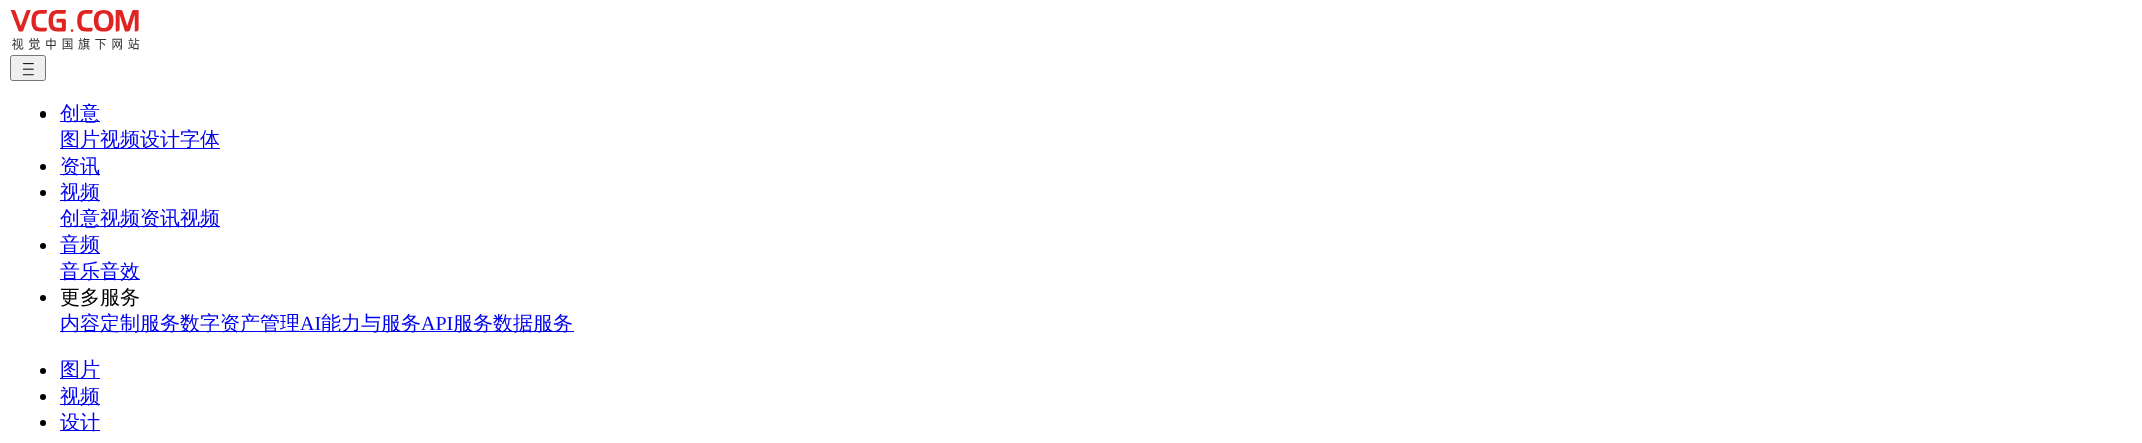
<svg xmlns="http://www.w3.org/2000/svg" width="2142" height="443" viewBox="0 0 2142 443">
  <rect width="100%" height="100%" fill="rgb(255,255,255)"/>
  <image x="10" y="10" width="130" height="40" href="pic1.png"/>
  <rect x="10.5" y="55.5" width="35" height="25" rx="2" fill="rgb(239,239,239)" stroke="rgb(118,118,118)"/>
  <image x="22" y="63" width="12" height="13" href="pic2.png"/>
  <rect x="40" y="111" width="6" height="7" rx="3" fill="rgb(0,0,0)"/>
  <rect x="60" y="121" width="40" height="1" fill="rgb(0,0,238)"/>
  <text x="60" y="120" font-family="WenQuanYi Zen Hei" font-size="20" font-weight="500" fill="rgb(0,0,238)">创意</text>
  <rect x="60" y="148" width="160" height="1" fill="rgb(0,0,238)"/>
  <text x="60" y="146" font-family="WenQuanYi Zen Hei" font-size="20" font-weight="500" fill="rgb(0,0,238)">图片视频设计字体</text>
  <circle cx="43" cy="167" r="3" fill="rgb(0,0,0)"/>
  <rect x="60" y="174" width="40" height="1" fill="rgb(0,0,238)"/>
  <text x="60" y="173" font-family="WenQuanYi Zen Hei" font-size="20" font-weight="500" fill="rgb(0,0,238)">资讯</text>
  <circle cx="43" cy="193" r="3" fill="rgb(0,0,0)"/>
  <rect x="60" y="200" width="40" height="1" fill="rgb(0,0,238)"/>
  <text x="60" y="199" font-family="WenQuanYi Zen Hei" font-size="20" font-weight="500" fill="rgb(0,0,238)">视频</text>
  <rect x="60" y="226" width="160" height="1" fill="rgb(0,0,238)"/>
  <text x="60" y="225" font-family="WenQuanYi Zen Hei" font-size="20" font-weight="500" fill="rgb(0,0,238)">创意视频资讯视频</text>
  <circle cx="43" cy="246" r="3" fill="rgb(0,0,0)"/>
  <rect x="60" y="253" width="40" height="1" fill="rgb(0,0,238)"/>
  <text x="60" y="251" font-family="WenQuanYi Zen Hei" font-size="20" font-weight="500" fill="rgb(0,0,238)">音频</text>
  <rect x="60" y="279" width="80" height="1" fill="rgb(0,0,238)"/>
  <text x="60" y="278" font-family="WenQuanYi Zen Hei" font-size="20" font-weight="500" fill="rgb(0,0,238)">音乐音效</text>
  <circle cx="43" cy="298" r="3" fill="rgb(0,0,0)"/>
  <text x="60" y="304" font-family="WenQuanYi Zen Hei" font-size="20" font-weight="500" fill="rgb(0,0,0)">更多服务</text>
  <rect x="60" y="331" width="514" height="1" fill="rgb(0,0,238)"/>
  <text x="60" y="330" font-family="WenQuanYi Zen Hei" font-size="20" font-weight="500" fill="rgb(0,0,238)">内容定制服务数字资产管理</text>
  <text x="300" y="330" font-family="Liberation Serif" font-size="20" fill="rgb(0,0,238)">AI</text>
  <text x="321" y="330" font-family="WenQuanYi Zen Hei" font-size="20" font-weight="500" fill="rgb(0,0,238)">能力与服务</text>
  <text x="421" y="330" font-family="Liberation Serif" font-size="20" fill="rgb(0,0,238)">API</text>
  <text x="453" y="330" font-family="WenQuanYi Zen Hei" font-size="20" font-weight="500" fill="rgb(0,0,238)">服务数据服务</text>
  <circle cx="43" cy="371" r="3" fill="rgb(0,0,0)"/>
  <rect x="60" y="378" width="40" height="1" fill="rgb(0,0,238)"/>
  <text x="60" y="376" font-family="WenQuanYi Zen Hei" font-size="20" font-weight="500" fill="rgb(0,0,238)">图片</text>
  <circle cx="43" cy="397" r="3" fill="rgb(0,0,0)"/>
  <rect x="60" y="404" width="40" height="1" fill="rgb(0,0,238)"/>
  <text x="60" y="403" font-family="WenQuanYi Zen Hei" font-size="20" font-weight="500" fill="rgb(0,0,238)">视频</text>
  <circle cx="43" cy="423" r="3" fill="rgb(0,0,0)"/>
  <rect x="60" y="430" width="40" height="1" fill="rgb(0,0,238)"/>
  <text x="60" y="429" font-family="WenQuanYi Zen Hei" font-size="20" font-weight="500" fill="rgb(0,0,238)">设计</text>
</svg>
